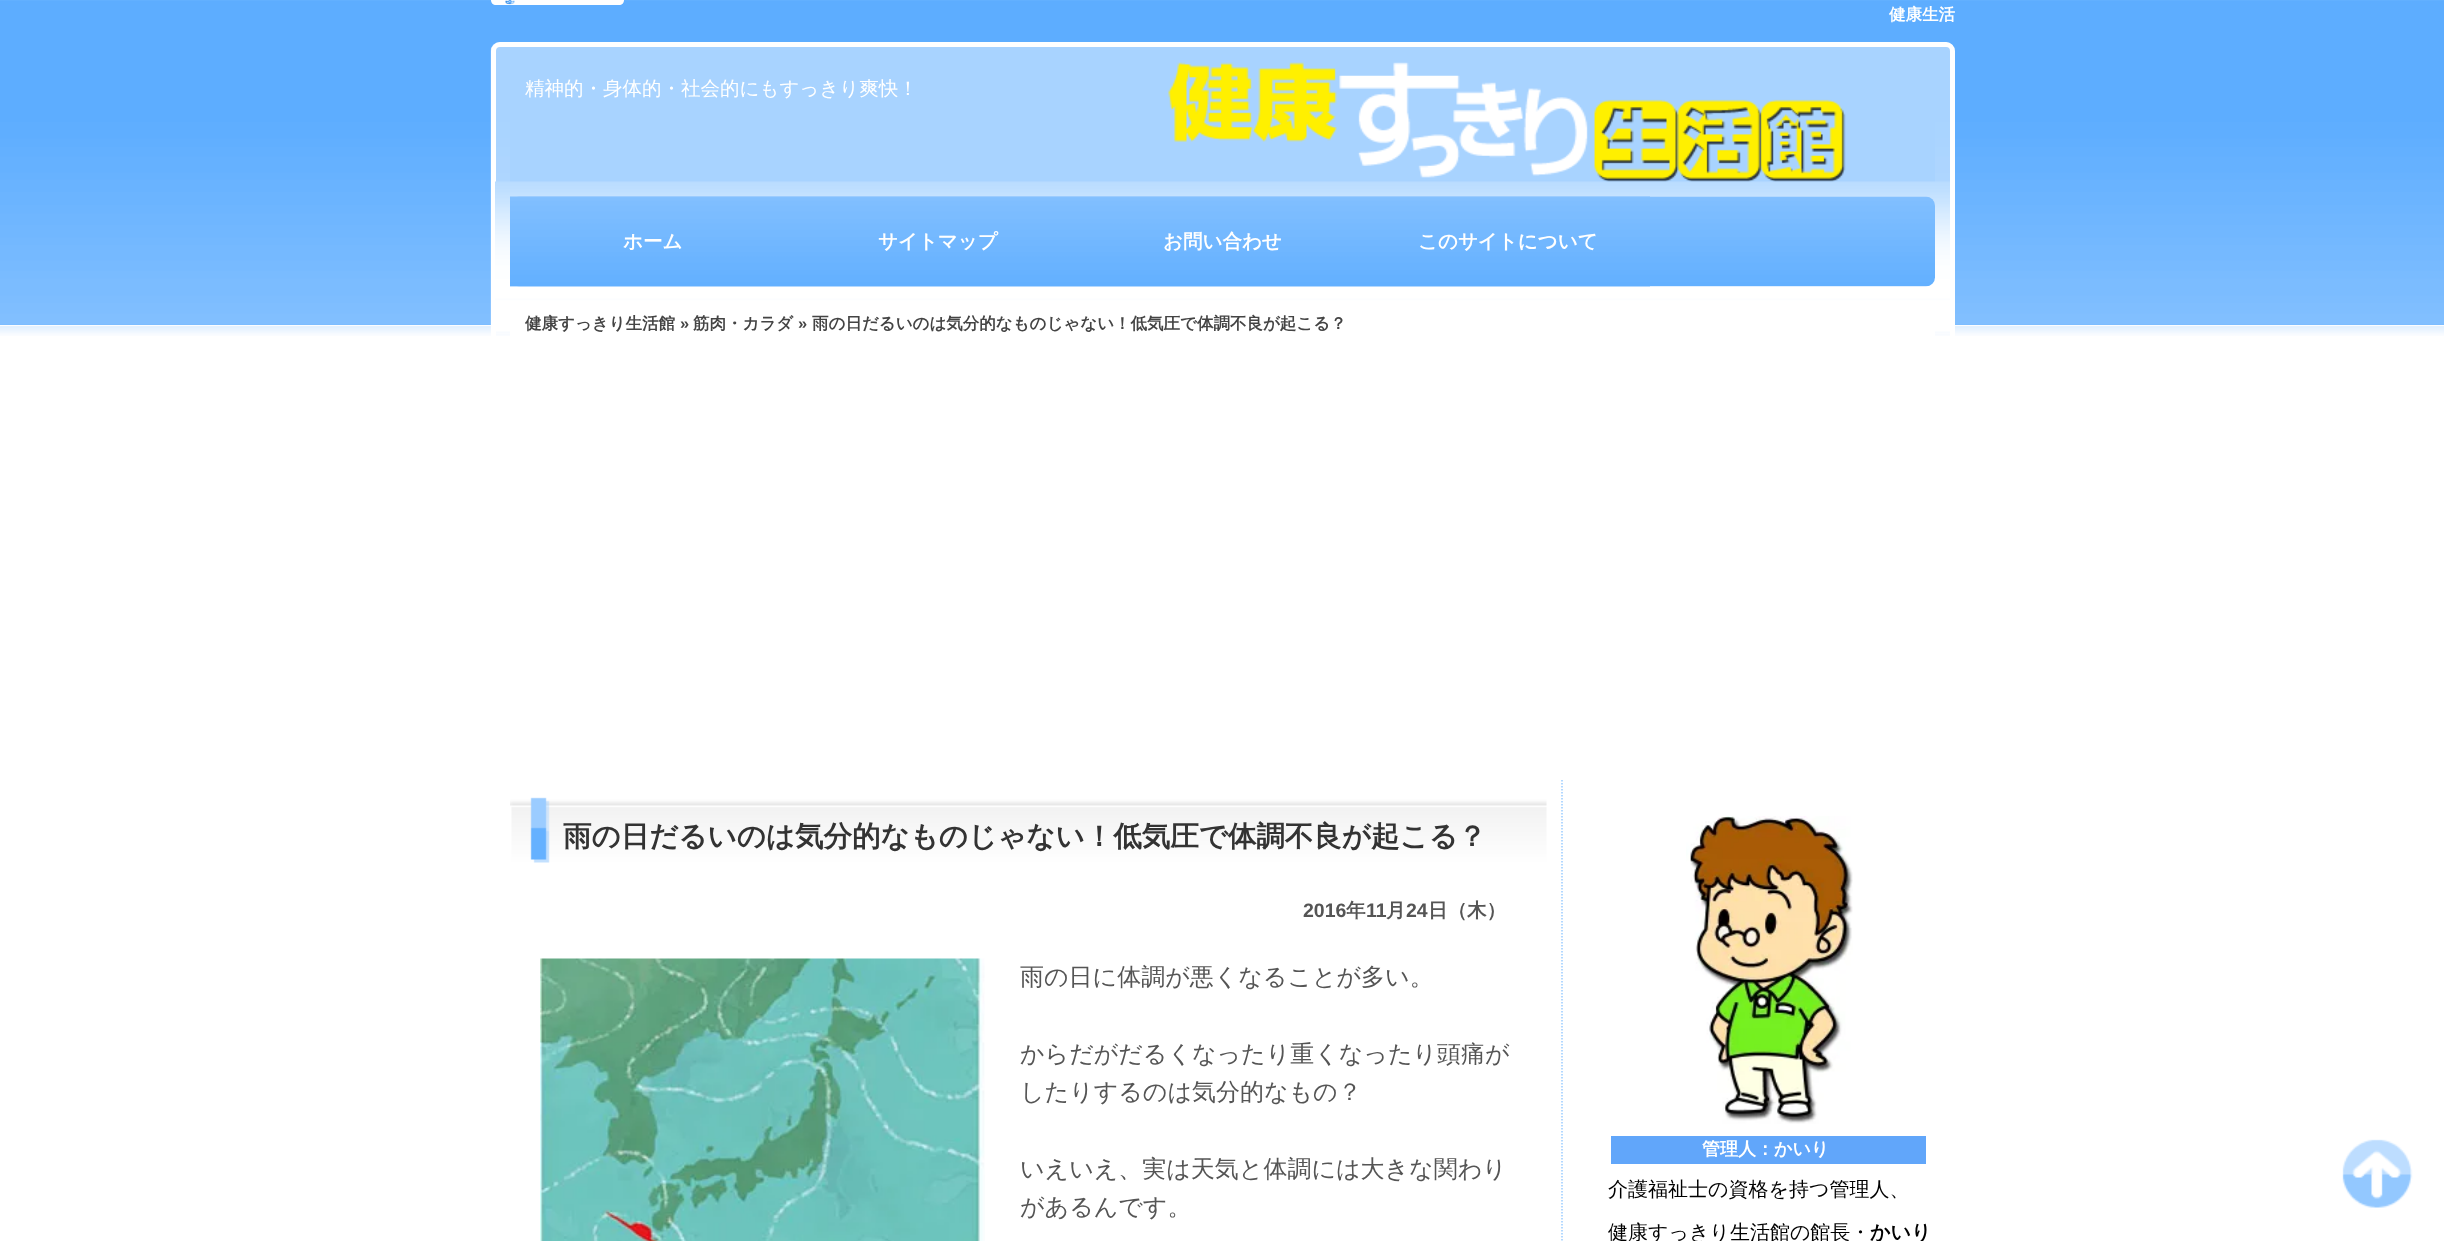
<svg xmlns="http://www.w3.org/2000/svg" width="2444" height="1241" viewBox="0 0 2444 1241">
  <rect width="100%" height="100%" fill="rgb(255,255,255)"/>
  <image x="0" y="0" width="2444" height="336" href="pic1.png"/>
  <path d="M491 0H624C624 3 622 5 619 5H496C493 5 491 3 491 0Z" fill="rgb(255,255,255)"/>
  <image x="505" y="0" width="10" height="5" href="pic2.png"/>
  <text x="1889" y="20" font-family="WenQuanYi Zen Hei" font-size="16.5" font-weight="bold" fill="rgb(255,255,255)">健康生活</text>
  <image x="490" y="42" width="1465" height="292" href="pic3.png"/>
  <rect x="493.5" y="44.5" width="1459" height="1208" rx="6.5" fill="none" stroke="rgb(255,255,255)" stroke-width="5"/>
  <image x="510" y="62" width="1425" height="120" href="pic4.png"/>
  <text x="525" y="95" font-family="WenQuanYi Zen Hei" font-size="19.5" font-weight="500" fill="rgb(255,255,255)">精神的・身体的・社会的にもすっきり爽快！</text>
  <image x="495" y="181" width="1455" height="151" href="pic5.png"/>
  <image x="517" y="196" width="1418" height="91" href="pic6.png"/>
  <image x="510" y="196" width="285" height="91" href="pic7.png"/>
  <text x="623" y="248" font-family="WenQuanYi Zen Hei" font-size="19.5" font-weight="bold" fill="rgb(255,255,255)">ホーム</text>
  <image x="795" y="196" width="285" height="91" href="pic8.png"/>
  <text x="878" y="248" font-family="WenQuanYi Zen Hei" font-size="19.5" font-weight="bold" fill="rgb(255,255,255)">サイトマップ</text>
  <image x="1080" y="196" width="285" height="91" href="pic9.png"/>
  <text x="1163" y="248" font-family="WenQuanYi Zen Hei" font-size="19.5" font-weight="bold" fill="rgb(255,255,255)">お問い合わせ</text>
  <image x="1365" y="196" width="285" height="91" href="pic10.png"/>
  <text x="1418" y="248" font-family="WenQuanYi Zen Hei" font-size="19.5" font-weight="bold" fill="rgb(255,255,255)">このサイトについて</text>
  <rect x="510" y="331" width="1425" height="5" fill="rgb(255,255,255)"/>
  <text x="525" y="329" font-family="WenQuanYi Zen Hei" font-size="16.5" font-weight="bold" fill="rgb(68,68,68)">健康すっきり生活館</text>
  <text x="680" y="329" font-family="Liberation Sans" font-size="16.5" font-weight="bold" fill="rgb(68,68,68)">»</text>
  <text x="693" y="329" font-family="WenQuanYi Zen Hei" font-size="16.5" font-weight="bold" fill="rgb(68,68,68)">筋肉・カラダ</text>
  <text x="798" y="329" font-family="Liberation Sans" font-size="16.5" font-weight="bold" fill="rgb(68,68,68)">»</text>
  <text x="812" y="329" font-family="WenQuanYi Zen Hei" font-size="16.5" font-weight="bold" fill="rgb(68,68,68)">雨の日だるいのは気分的なものじゃない！低気圧で体調不良が起こる？</text>
  <path d="M1562 780V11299.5" fill="none" stroke="rgb(155,204,255)" stroke-width="1.5" stroke-dasharray="1.5 1.5"/>
  <image x="510" y="797" width="1037" height="66" href="pic11.png"/>
  <text x="563" y="846" font-family="WenQuanYi Zen Hei" font-size="28.5" font-weight="bold" fill="rgb(51,51,51)">雨の日だるいのは気分的なものじゃない！低気圧で体調不良が起こる？</text>
  <text x="1303" y="917" font-family="Liberation Sans" font-size="19.5" font-weight="bold" fill="rgb(85,85,85)">2016</text>
  <text x="1346" y="917" font-family="WenQuanYi Zen Hei" font-size="19.5" font-weight="bold" fill="rgb(85,85,85)">年</text>
  <text x="1366" y="917" font-family="Liberation Sans" font-size="19.5" font-weight="bold" fill="rgb(85,85,85)">11</text>
  <text x="1386" y="917" font-family="WenQuanYi Zen Hei" font-size="19.5" font-weight="bold" fill="rgb(85,85,85)">月</text>
  <text x="1406" y="917" font-family="Liberation Sans" font-size="19.5" font-weight="bold" fill="rgb(85,85,85)">24</text>
  <text x="1428" y="917" font-family="WenQuanYi Zen Hei" font-size="19.5" font-weight="bold" fill="rgb(85,85,85)">日（木）</text>
  <image x="540" y="958" width="445" height="283" href="pic12.png"/>
  <g font-family="WenQuanYi Zen Hei" font-size="24" font-weight="500" fill="rgb(85,85,85)">
    <text x="1020" y="985">雨の日に体調が悪くなることが多い。</text>
    <text>
      <tspan x="1020" y="1062">からだがだるくなったり重くなったり頭痛が</tspan>
      <tspan x="1020" y="1100">したりするのは気分的なもの？</tspan>
    </text>
    <text>
      <tspan x="1020" y="1177">いえいえ、実は天気と体調には大きな関わり</tspan>
      <tspan x="1020" y="1215">があるんです。</tspan>
    </text>
  </g>
  <image x="1686" y="816" width="167" height="308" href="pic13.png"/>
  <rect x="1611" y="1136" width="315" height="28" fill="rgb(97,166,250)"/>
  <text x="1702" y="1155" font-family="WenQuanYi Zen Hei" font-size="18" font-weight="bold" fill="rgb(255,255,255)">管理人：かいり</text>
  <g font-family="WenQuanYi Zen Hei" font-size="20" font-weight="500" fill="rgb(0,0,0)">
    <text x="1608" y="1196">介護福祉士の資格を持つ管理人、</text>
    <text x="1608" y="1239">健康すっきり生活館の館長・</text>
  </g>
  <text x="1870" y="1239" font-family="WenQuanYi Zen Hei" font-size="20" font-weight="bold" fill="rgb(0,0,0)">かいり</text>
  <image x="2342" y="1139" width="71" height="69" href="pic14.png"/>
</svg>
